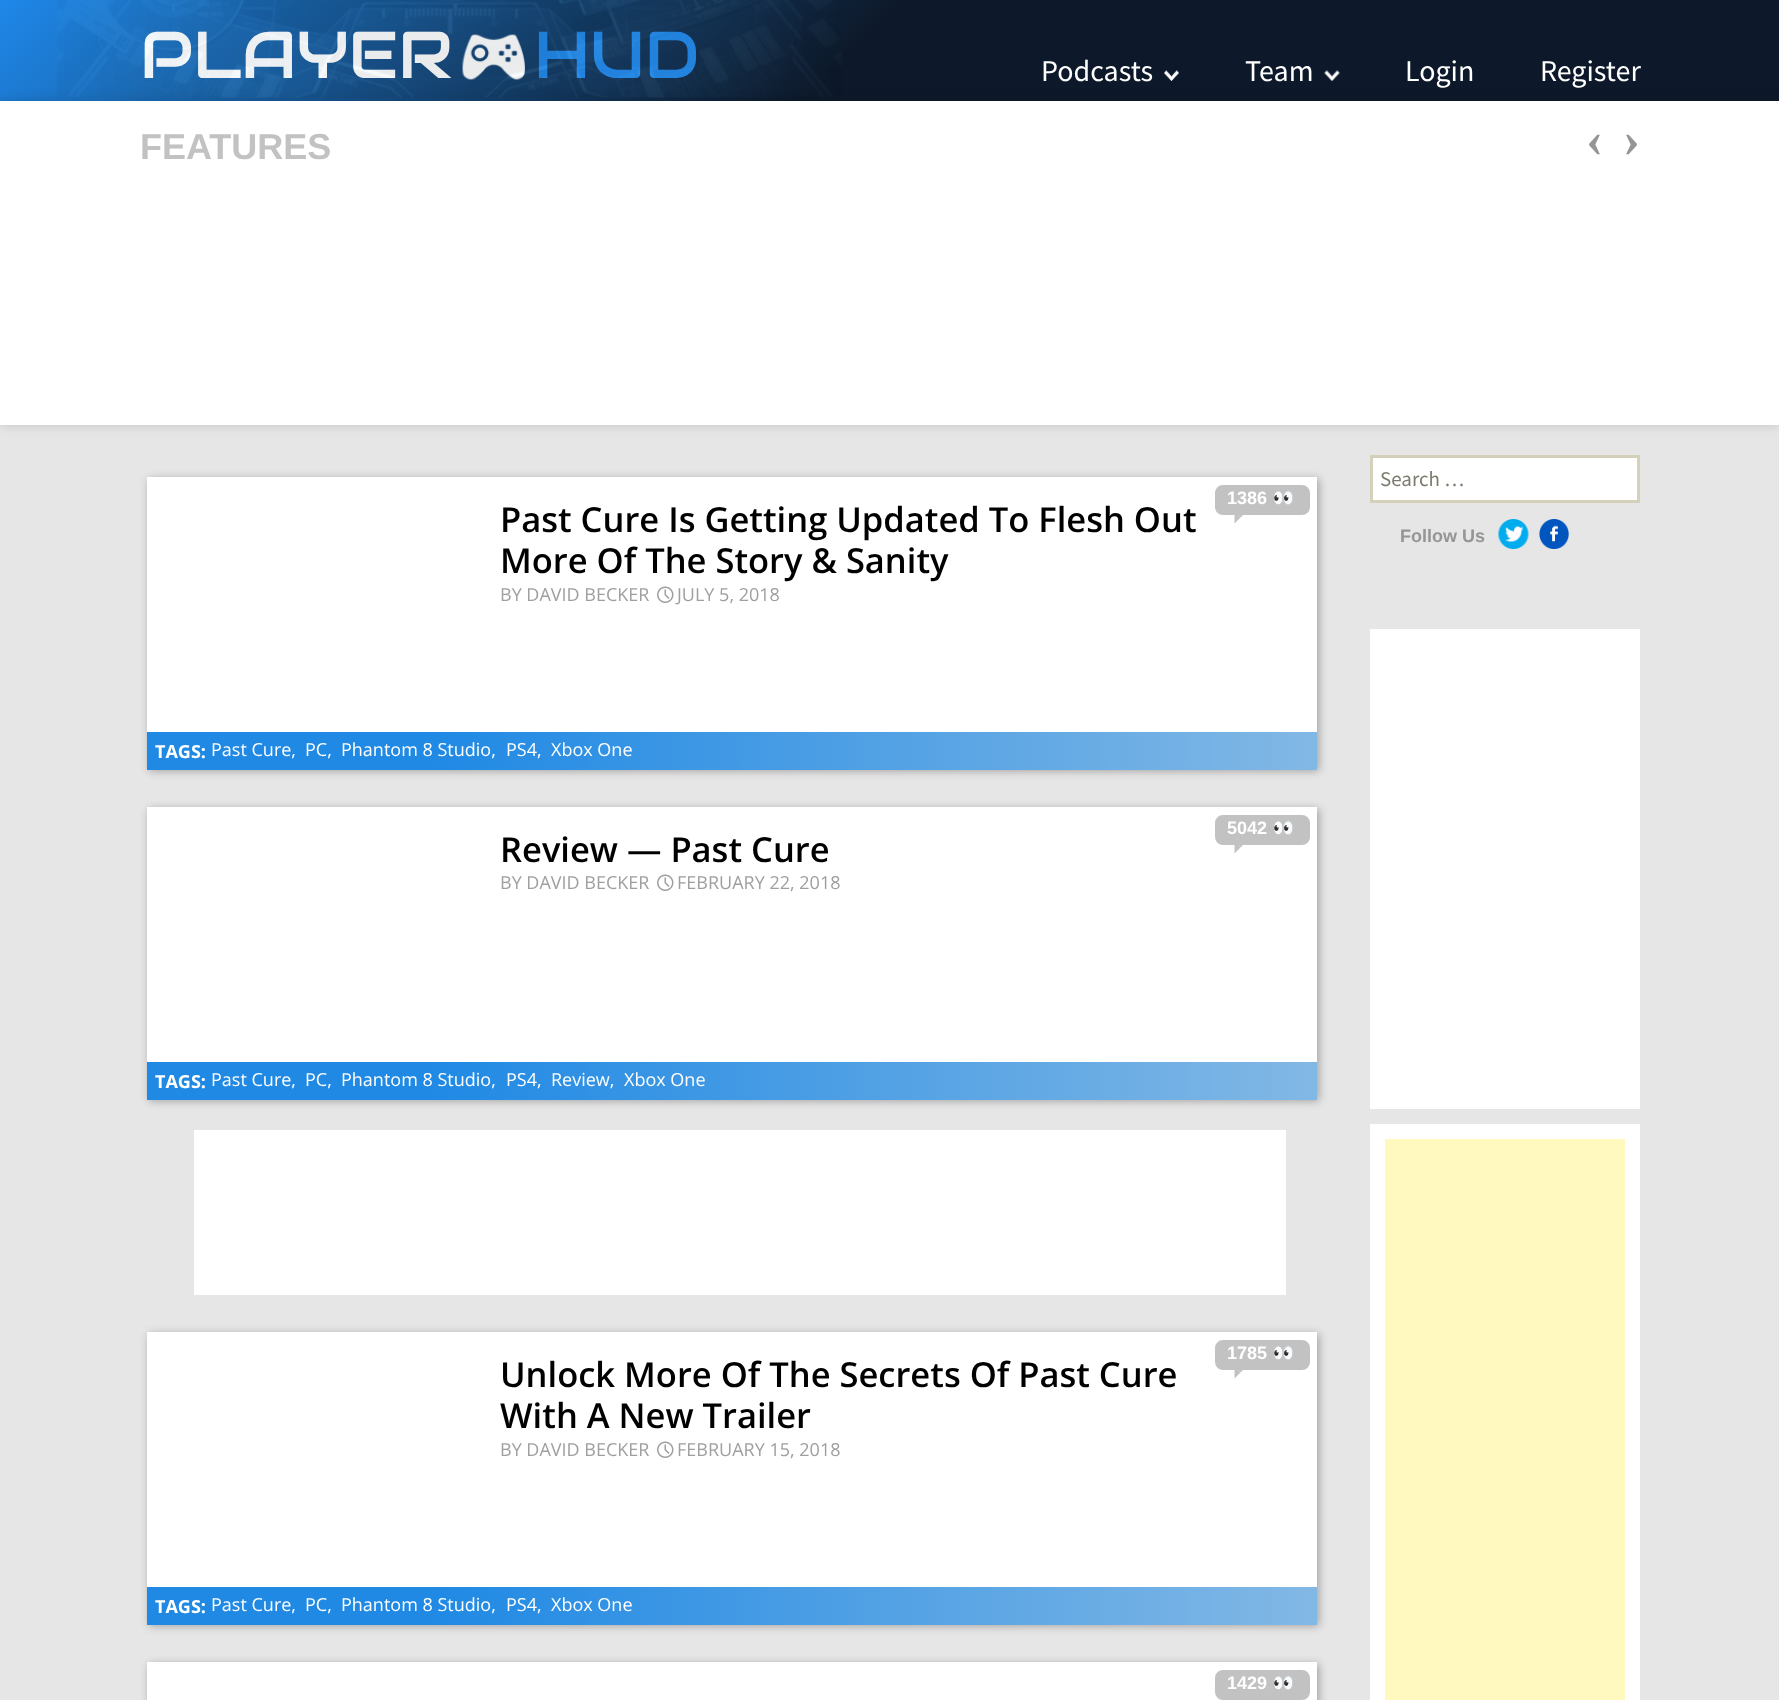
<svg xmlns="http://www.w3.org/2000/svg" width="1779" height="1700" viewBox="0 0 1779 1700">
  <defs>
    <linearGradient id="g1" gradientUnits="userSpaceOnUse" x1="200" y1="-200" x2="700" y2="300"><stop offset="0" stop-color="rgb(31,136,233)"/><stop offset="0.9" stop-color="rgb(13,25,42)"/><stop offset="1" stop-color="rgb(13,25,42)"/></linearGradient>
    <linearGradient id="g2" gradientUnits="userSpaceOnUse" x1="147" y1="751" x2="1317" y2="751"><stop offset="0" stop-color="rgb(31,137,228)"/><stop offset="0.24" stop-color="rgb(31,137,228)"/><stop offset="1" stop-color="rgb(130,184,229)"/></linearGradient>
    <linearGradient id="g3" gradientUnits="userSpaceOnUse" x1="147" y1="1081" x2="1317" y2="1081"><stop offset="0" stop-color="rgb(31,137,228)"/><stop offset="0.24" stop-color="rgb(31,137,228)"/><stop offset="1" stop-color="rgb(130,184,229)"/></linearGradient>
    <linearGradient id="g4" gradientUnits="userSpaceOnUse" x1="147" y1="1606" x2="1317" y2="1606"><stop offset="0" stop-color="rgb(31,137,228)"/><stop offset="0.24" stop-color="rgb(31,137,228)"/><stop offset="1" stop-color="rgb(130,184,229)"/></linearGradient>
  </defs>
  <rect width="100%" height="100%" fill="rgb(230,230,230)"/>
  <rect x="900" y="0" width="879" height="101" fill="rgb(13,25,42)"/>
  <rect x="0" y="0" width="900" height="101" fill="url(#g1)"/>
  <text x="140" y="78" font-family="Audiowide" font-size="66" fill="rgb(255,255,255)">PLAYER</text>
  <image x="462" y="34" width="63" height="46" href="pic2.png"/>
  <text x="534" y="78" font-family="Audiowide" font-size="66" fill="rgb(32,136,232)">HUD</text>
  <rect x="0" y="101" width="1779" height="324" fill="rgba(0,0,0,0.15)" filter="blur(6px)"/>
  <image x="57" y="0" width="785" height="98" href="pic1.png"/>
  <text x="1041" y="81" font-family="Source Sans Pro" font-size="30" fill="rgb(255,255,255)">Podcasts</text>
  <image x="1164" y="70" width="15" height="11" href="pic3.png"/>
  <text x="1245" y="81" font-family="Source Sans Pro" font-size="30" fill="rgb(255,255,255)">Team</text>
  <image x="1324" y="70" width="16" height="11" href="pic4.png"/>
  <g font-family="Source Sans Pro" font-size="30" fill="rgb(255,255,255)">
    <text x="1405" y="81">Login</text>
    <text x="1540" y="81">Register</text>
  </g>
  <rect x="0" y="101" width="1779" height="324" fill="rgb(255,255,255)"/>
  <text x="140" y="159" font-family="Liberation Sans" font-size="36" font-weight="bold" fill="rgb(194,194,194)">FEATURES</text>
  <g font-family="Liberation Serif" font-size="51" font-weight="bold" fill="rgb(149,149,149)">
    <text x="1586" y="156">‹</text>
    <text x="1623" y="156">›</text>
  </g>
  <rect x="149" y="479" width="1170" height="292" fill="rgba(0,0,0,0.3)" filter="blur(4px)"/>
  <rect x="147" y="477" width="1170" height="255" fill="rgb(255,255,255)"/>
  <rect x="1221" y="491" width="83" height="18" rx="2" fill="rgb(194,194,194)" stroke="rgb(194,194,194)" stroke-width="12"/>
  <text x="1227" y="504" font-family="Liberation Sans" font-size="18" font-weight="bold" fill="rgb(255,255,255)">1386</text>
  <text x="1272" y="504" font-family="Noto Color Emoji" font-size="18" font-weight="bold" fill="rgb(255,255,255)">👀</text>
  <path d="M1234.5 511.5H1246.5L1240.5 517.5Z" fill="rgb(194,194,194)"/>
  <path d="M1234.5 523.5V511.5L1240.5 517.5Z" fill="rgb(194,194,194)"/>
  <g font-family="Open Sans" font-size="34.5" font-weight="600" fill="rgb(0,0,0)">
    <text>
      <tspan x="500" y="532">Past Cure Is Getting Updated To Flesh Out</tspan>
      <tspan x="500" y="573">More Of The Story &amp; Sanity</tspan>
    </text>
  </g>
  <text x="500" y="601" font-family="Open Sans" font-size="18" fill="rgb(159,159,159)">BY DAVID BECKER</text>
  <image x="657" y="586" width="17" height="17" href="pic5.png"/>
  <text x="677" y="601" font-family="Open Sans" font-size="18" fill="rgb(159,159,159)">JULY 5, 2018</text>
  <rect x="147" y="732" width="1170" height="38" fill="url(#g2)"/>
  <text x="155" y="758" font-family="Open Sans" font-size="18" font-weight="bold" fill="rgb(255,255,255)">TAGS:</text>
  <g font-family="Open Sans" font-size="18" fill="rgb(255,255,255)">
    <text x="211" y="756">Past Cure,</text>
    <text x="305" y="756">PC,</text>
    <text x="341" y="756">Phantom 8 Studio,</text>
    <text x="506" y="756">PS4,</text>
    <text x="551" y="756">Xbox One</text>
  </g>
  <rect x="149" y="809" width="1170" height="292" fill="rgba(0,0,0,0.3)" filter="blur(4px)"/>
  <rect x="147" y="807" width="1170" height="255" fill="rgb(255,255,255)"/>
  <rect x="1221" y="821" width="83" height="18" rx="2" fill="rgb(194,194,194)" stroke="rgb(194,194,194)" stroke-width="12"/>
  <text x="1227" y="834" font-family="Liberation Sans" font-size="18" font-weight="bold" fill="rgb(255,255,255)">5042</text>
  <text x="1272" y="834" font-family="Noto Color Emoji" font-size="18" font-weight="bold" fill="rgb(255,255,255)">👀</text>
  <path d="M1234.5 841.5H1246.5L1240.5 847.5Z" fill="rgb(194,194,194)"/>
  <path d="M1234.5 853.5V841.5L1240.5 847.5Z" fill="rgb(194,194,194)"/>
  <text x="500" y="862" font-family="Open Sans" font-size="34.5" font-weight="600" fill="rgb(0,0,0)">Review — Past Cure</text>
  <text x="500" y="889" font-family="Open Sans" font-size="18" fill="rgb(159,159,159)">BY DAVID BECKER</text>
  <image x="657" y="874" width="17" height="17" href="pic5.png"/>
  <text x="677" y="889" font-family="Open Sans" font-size="18" fill="rgb(159,159,159)">FEBRUARY 22, 2018</text>
  <rect x="147" y="1062" width="1170" height="38" fill="url(#g3)"/>
  <text x="155" y="1088" font-family="Open Sans" font-size="18" font-weight="bold" fill="rgb(255,255,255)">TAGS:</text>
  <g font-family="Open Sans" font-size="18" fill="rgb(255,255,255)">
    <text x="211" y="1086">Past Cure,</text>
    <text x="305" y="1086">PC,</text>
    <text x="341" y="1086">Phantom 8 Studio,</text>
    <text x="506" y="1086">PS4,</text>
    <text x="551" y="1086">Review,</text>
    <text x="624" y="1086">Xbox One</text>
  </g>
  <rect x="194" y="1130" width="1092" height="165" fill="rgb(255,255,255)"/>
  <rect x="149" y="1334" width="1170" height="292" fill="rgba(0,0,0,0.3)" filter="blur(4px)"/>
  <rect x="147" y="1332" width="1170" height="255" fill="rgb(255,255,255)"/>
  <rect x="1221" y="1346" width="83" height="18" rx="2" fill="rgb(194,194,194)" stroke="rgb(194,194,194)" stroke-width="12"/>
  <text x="1227" y="1359" font-family="Liberation Sans" font-size="18" font-weight="bold" fill="rgb(255,255,255)">1785</text>
  <text x="1272" y="1359" font-family="Noto Color Emoji" font-size="18" font-weight="bold" fill="rgb(255,255,255)">👀</text>
  <path d="M1234.5 1366.5H1246.5L1240.5 1372.5Z" fill="rgb(194,194,194)"/>
  <path d="M1234.5 1378.5V1366.5L1240.5 1372.5Z" fill="rgb(194,194,194)"/>
  <g font-family="Open Sans" font-size="34.5" font-weight="600" fill="rgb(0,0,0)">
    <text>
      <tspan x="500" y="1387">Unlock More Of The Secrets Of Past Cure</tspan>
      <tspan x="500" y="1428">With A New Trailer</tspan>
    </text>
  </g>
  <text x="500" y="1456" font-family="Open Sans" font-size="18" fill="rgb(159,159,159)">BY DAVID BECKER</text>
  <image x="657" y="1441" width="17" height="17" href="pic5.png"/>
  <text x="677" y="1456" font-family="Open Sans" font-size="18" fill="rgb(159,159,159)">FEBRUARY 15, 2018</text>
  <rect x="147" y="1587" width="1170" height="38" fill="url(#g4)"/>
  <text x="155" y="1613" font-family="Open Sans" font-size="18" font-weight="bold" fill="rgb(255,255,255)">TAGS:</text>
  <g font-family="Open Sans" font-size="18" fill="rgb(255,255,255)">
    <text x="211" y="1611">Past Cure,</text>
    <text x="305" y="1611">PC,</text>
    <text x="341" y="1611">Phantom 8 Studio,</text>
    <text x="506" y="1611">PS4,</text>
    <text x="551" y="1611">Xbox One</text>
  </g>
  <rect x="149" y="1664" width="1170" height="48" fill="rgba(0,0,0,0.3)" filter="blur(4px)"/>
  <rect x="147" y="1662" width="1170" height="38" fill="rgb(255,255,255)"/>
  <rect x="1221" y="1676" width="83" height="18" rx="2" fill="rgb(194,194,194)" stroke="rgb(194,194,194)" stroke-width="12"/>
  <text x="1227" y="1689" font-family="Liberation Sans" font-size="18" font-weight="bold" fill="rgb(255,255,255)">1429</text>
  <text x="1272" y="1689" font-family="Noto Color Emoji" font-size="18" font-weight="bold" fill="rgb(255,255,255)">👀</text>
  <rect x="1371.5" y="456.5" width="267" height="45" fill="rgb(255,255,255)" stroke="rgb(212,208,186)" stroke-width="3"/>
  <text x="1380" y="486" font-family="Source Sans Pro" font-size="21" fill="rgb(125,123,109)">Search …</text>
  <text x="1400" y="542" font-family="Liberation Sans" font-size="18" font-weight="bold" fill="rgb(149,149,149)">Follow Us</text>
  <image x="1498" y="519" width="31" height="30" href="pic6.png"/>
  <image x="1539" y="519" width="30" height="30" href="pic7.png"/>
  <rect x="1370" y="629" width="270" height="480" fill="rgb(255,255,255)"/>
  <rect x="1370" y="1124" width="270" height="576" fill="rgb(255,255,255)"/>
  <rect x="1385" y="1139" width="240" height="561" fill="rgb(255,249,192)"/>
</svg>
